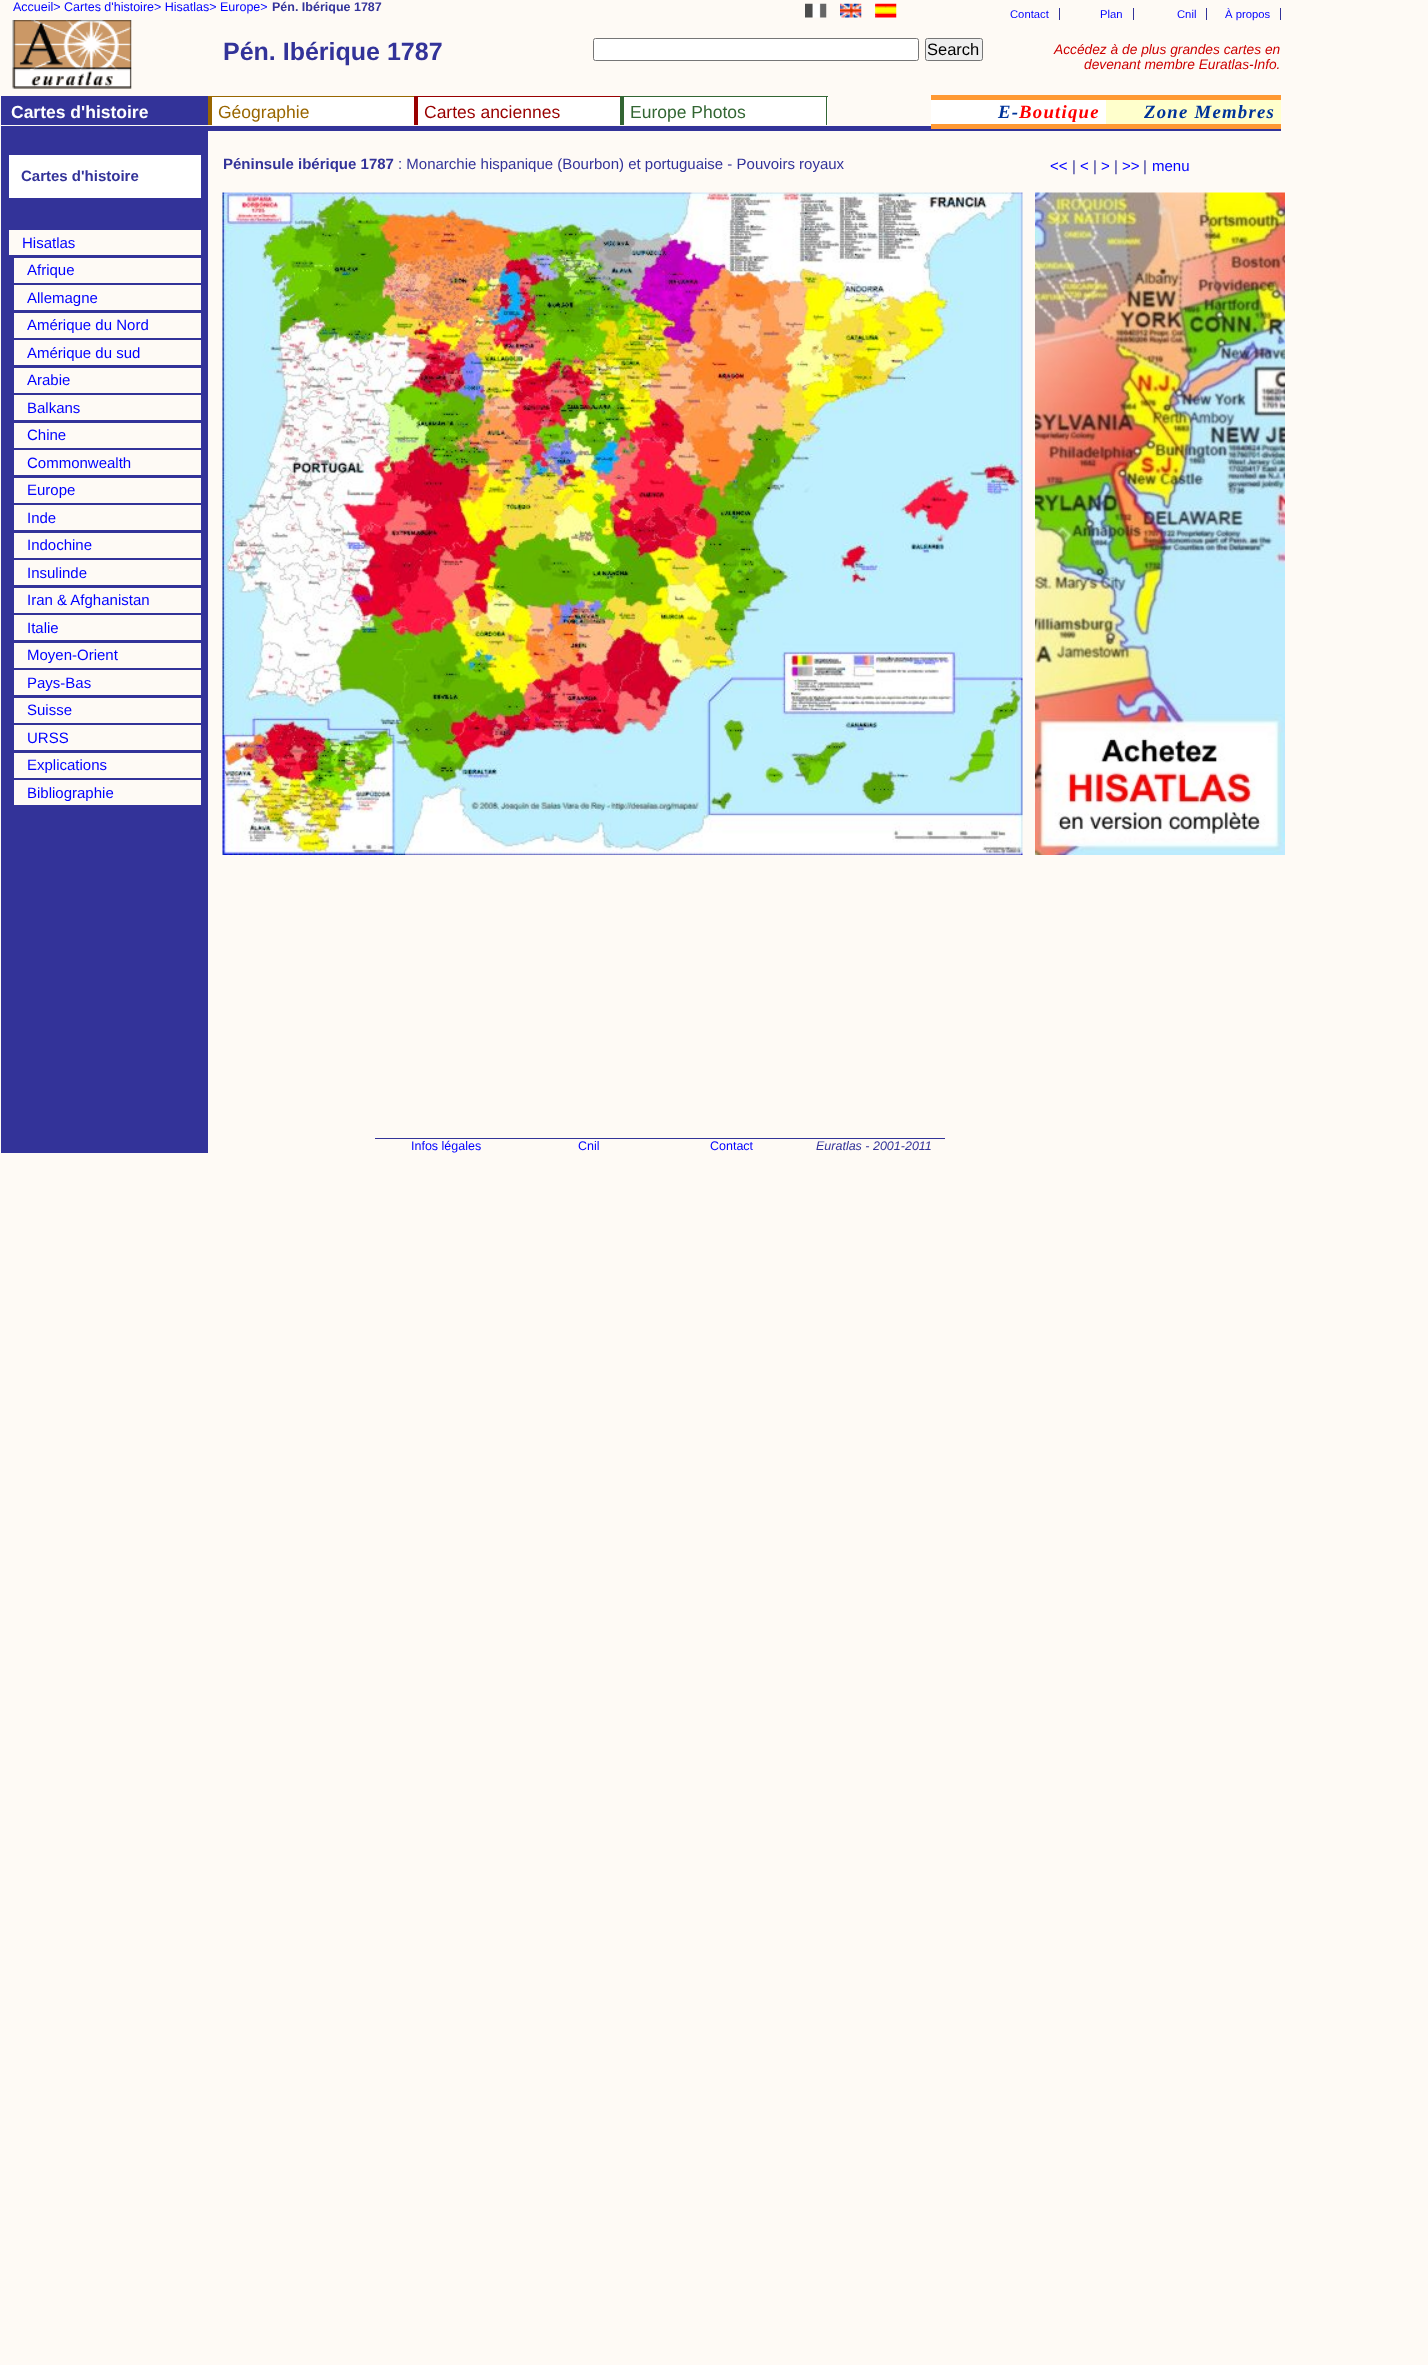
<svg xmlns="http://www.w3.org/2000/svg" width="1428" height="2365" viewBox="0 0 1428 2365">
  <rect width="100%" height="100%" fill="rgb(254,250,245)"/>
  <text x="13" y="11" font-family="Liberation Sans" font-size="12.5" fill="rgb(0,0,255)">Accueil&gt; Cartes d'histoire&gt; Hisatlas&gt; Europe&gt;</text>
  <text x="272" y="11" font-family="Liberation Sans" font-size="12.5" font-weight="bold" fill="rgb(51,51,153)">Pén. Ibérique 1787</text>
  <image x="805" y="3" width="22" height="15" href="pic1.png"/>
  <image x="840" y="3" width="22" height="15" href="pic2.png"/>
  <image x="875" y="3" width="22" height="15" href="pic3.png"/>
  <rect x="1059" y="8" width="1" height="12" fill="rgb(51,51,153)"/>
  <text x="1010" y="18" font-family="Liberation Sans" font-size="11.25" fill="rgb(0,0,255)">Contact</text>
  <rect x="1133" y="8" width="1" height="12" fill="rgb(51,51,153)"/>
  <text x="1100" y="18" font-family="Liberation Sans" font-size="11.25" fill="rgb(0,0,255)">Plan</text>
  <rect x="1206" y="8" width="1" height="12" fill="rgb(51,51,153)"/>
  <text x="1177" y="18" font-family="Liberation Sans" font-size="11.25" fill="rgb(0,0,255)">Cnil</text>
  <rect x="1280" y="8" width="1" height="12" fill="rgb(51,51,153)"/>
  <text x="1225" y="18" font-family="Liberation Sans" font-size="11.25" fill="rgb(0,0,255)">À propos</text>
  <image x="12" y="20" width="120" height="69" href="pic4.png"/>
  <text x="223" y="60" font-family="Liberation Sans" font-size="25" font-weight="bold" fill="rgb(51,51,153)">Pén. Ibérique 1787</text>
  <rect x="593.5" y="38.5" width="325" height="22" rx="2" fill="rgb(255,255,255)" stroke="rgb(118,118,118)"/>
  <rect x="925.5" y="38.5" width="57" height="22" rx="2" fill="rgb(239,239,239)" stroke="rgb(118,118,118)"/>
  <text x="927" y="55" font-family="Liberation Sans" font-size="16.5" fill="rgb(0,0,0)">Search</text>
  <g font-family="Liberation Sans" font-size="13.75" font-style="italic" fill="rgb(204,0,0)">
    <text x="1054" y="54">Accédez à de plus grandes cartes en</text>
    <text x="1084" y="69">devenant membre Euratlas-Info.</text>
  </g>
  <rect x="1" y="96" width="207" height="29" fill="rgb(51,51,153)"/>
  <text x="11" y="118" font-family="Liberation Sans" font-size="17.5" font-weight="bold" fill="rgb(255,255,255)">Cartes d'histoire</text>
  <rect x="212" y="97" width="202" height="28" fill="rgb(255,255,255)"/>
  <rect x="208" y="96" width="206" height="1" fill="rgb(153,102,0)"/>
  <rect x="208" y="96" width="4" height="29" fill="rgb(153,102,0)"/>
  <text x="218" y="118" font-family="Liberation Sans" font-size="17.5" fill="rgb(153,102,0)">Géographie</text>
  <rect x="418" y="97" width="202" height="28" fill="rgb(255,255,255)"/>
  <rect x="414" y="96" width="206" height="1" fill="rgb(153,0,0)"/>
  <rect x="414" y="96" width="4" height="29" fill="rgb(153,0,0)"/>
  <text x="424" y="118" font-family="Liberation Sans" font-size="17.5" fill="rgb(153,0,0)">Cartes anciennes</text>
  <rect x="624" y="97" width="204" height="28" fill="rgb(255,255,255)"/>
  <rect x="620" y="96" width="208" height="1" fill="rgb(51,102,51)"/>
  <rect x="826" y="96" width="1" height="29" fill="rgb(51,102,51)"/>
  <rect x="620" y="96" width="4" height="29" fill="rgb(51,102,51)"/>
  <text x="630" y="118" font-family="Liberation Sans" font-size="17.5" fill="rgb(51,102,51)">Europe Photos</text>
  <rect x="931" y="100" width="175" height="24" fill="rgb(255,255,255)"/>
  <rect x="931" y="95" width="350" height="5" fill="rgb(255,153,51)"/>
  <rect x="1" y="126" width="1280" height="5" fill="rgb(51,51,153)"/>
  <rect x="931" y="124" width="350" height="5" fill="rgb(255,153,51)"/>
  <text x="998" y="118" font-family="Liberation Serif" font-size="18.75" font-weight="bold" font-style="italic" letter-spacing="1.25" fill="rgb(0,51,153)">E-</text>
  <text x="1019" y="118" font-family="Liberation Serif" font-size="18.75" font-weight="bold" font-style="italic" letter-spacing="1.25" fill="rgb(255,0,0)">Boutique</text>
  <rect x="1106" y="100" width="175" height="24" fill="rgb(255,255,204)"/>
  <text x="1144" y="118" font-family="Liberation Serif" font-size="18.75" font-weight="bold" font-style="italic" letter-spacing="1.25" fill="rgb(0,51,153)">Zone Membres</text>
  <text x="223" y="169" font-family="Liberation Sans" font-size="15" font-weight="bold" fill="rgb(51,51,153)">Péninsule ibérique 1787</text>
  <text x="398" y="169" font-family="Liberation Sans" font-size="15" fill="rgb(51,51,153)">: Monarchie hispanique (Bourbon) et portuguaise - Pouvoirs royaux</text>
  <text x="1050" y="171" font-family="Liberation Sans" font-size="15" fill="rgb(0,0,255)">&lt;&lt;</text>
  <text x="1072" y="171" font-family="Liberation Sans" font-size="15" fill="rgb(51,51,153)">|</text>
  <text x="1080" y="171" font-family="Liberation Sans" font-size="15" fill="rgb(0,0,255)">&lt;</text>
  <text x="1093" y="171" font-family="Liberation Sans" font-size="15" fill="rgb(51,51,153)">|</text>
  <text x="1101" y="171" font-family="Liberation Sans" font-size="15" fill="rgb(0,0,255)">&gt;</text>
  <text x="1114" y="171" font-family="Liberation Sans" font-size="15" fill="rgb(51,51,153)">|</text>
  <text x="1122" y="171" font-family="Liberation Sans" font-size="15" fill="rgb(0,0,255)">&gt;&gt;</text>
  <text x="1143" y="171" font-family="Liberation Sans" font-size="15" fill="rgb(51,51,153)">|</text>
  <text x="1152" y="171" font-family="Liberation Sans" font-size="15" fill="rgb(0,0,255)">menu</text>
  <rect x="1" y="131" width="207" height="1022" fill="rgb(51,51,153)"/>
  <rect x="9" y="155" width="192" height="43" fill="rgb(255,255,255)"/>
  <text x="21" y="181" font-family="Liberation Sans" font-size="15" font-weight="bold" fill="rgb(51,51,153)">Cartes d'histoire</text>
  <rect x="9" y="230" width="192" height="25" fill="rgb(254,250,245)"/>
  <text x="22" y="248" font-family="Liberation Sans" font-size="15" fill="rgb(0,0,255)">Hisatlas</text>
  <rect x="14" y="258" width="187" height="25" fill="rgb(254,250,245)"/>
  <text x="27" y="275" font-family="Liberation Sans" font-size="15" fill="rgb(0,0,255)">Afrique</text>
  <rect x="14" y="285" width="187" height="25" fill="rgb(254,250,245)"/>
  <text x="27" y="303" font-family="Liberation Sans" font-size="15" fill="rgb(0,0,255)">Allemagne</text>
  <rect x="14" y="313" width="187" height="25" fill="rgb(254,250,245)"/>
  <text x="27" y="330" font-family="Liberation Sans" font-size="15" fill="rgb(0,0,255)">Amérique du Nord</text>
  <rect x="14" y="340" width="187" height="25" fill="rgb(254,250,245)"/>
  <text x="27" y="358" font-family="Liberation Sans" font-size="15" fill="rgb(0,0,255)">Amérique du sud</text>
  <rect x="14" y="368" width="187" height="25" fill="rgb(254,250,245)"/>
  <text x="27" y="385" font-family="Liberation Sans" font-size="15" fill="rgb(0,0,255)">Arabie</text>
  <rect x="14" y="395" width="187" height="25" fill="rgb(254,250,245)"/>
  <text x="27" y="413" font-family="Liberation Sans" font-size="15" fill="rgb(0,0,255)">Balkans</text>
  <rect x="14" y="423" width="187" height="25" fill="rgb(254,250,245)"/>
  <text x="27" y="440" font-family="Liberation Sans" font-size="15" fill="rgb(0,0,255)">Chine</text>
  <rect x="14" y="450" width="187" height="25" fill="rgb(254,250,245)"/>
  <text x="27" y="468" font-family="Liberation Sans" font-size="15" fill="rgb(0,0,255)">Commonwealth</text>
  <rect x="14" y="478" width="187" height="25" fill="rgb(254,250,245)"/>
  <text x="27" y="495" font-family="Liberation Sans" font-size="15" fill="rgb(0,0,255)">Europe</text>
  <rect x="14" y="505" width="187" height="25" fill="rgb(254,250,245)"/>
  <text x="27" y="523" font-family="Liberation Sans" font-size="15" fill="rgb(0,0,255)">Inde</text>
  <rect x="14" y="533" width="187" height="25" fill="rgb(254,250,245)"/>
  <text x="27" y="550" font-family="Liberation Sans" font-size="15" fill="rgb(0,0,255)">Indochine</text>
  <rect x="14" y="560" width="187" height="25" fill="rgb(254,250,245)"/>
  <text x="27" y="578" font-family="Liberation Sans" font-size="15" fill="rgb(0,0,255)">Insulinde</text>
  <rect x="14" y="588" width="187" height="25" fill="rgb(254,250,245)"/>
  <text x="27" y="605" font-family="Liberation Sans" font-size="15" fill="rgb(0,0,255)">Iran &amp; Afghanistan</text>
  <rect x="14" y="615" width="187" height="25" fill="rgb(254,250,245)"/>
  <text x="27" y="633" font-family="Liberation Sans" font-size="15" fill="rgb(0,0,255)">Italie</text>
  <rect x="14" y="643" width="187" height="25" fill="rgb(254,250,245)"/>
  <text x="27" y="660" font-family="Liberation Sans" font-size="15" fill="rgb(0,0,255)">Moyen-Orient</text>
  <rect x="14" y="670" width="187" height="25" fill="rgb(254,250,245)"/>
  <text x="27" y="688" font-family="Liberation Sans" font-size="15" fill="rgb(0,0,255)">Pays-Bas</text>
  <rect x="14" y="698" width="187" height="25" fill="rgb(254,250,245)"/>
  <text x="27" y="715" font-family="Liberation Sans" font-size="15" fill="rgb(0,0,255)">Suisse</text>
  <rect x="14" y="725" width="187" height="25" fill="rgb(254,250,245)"/>
  <text x="27" y="743" font-family="Liberation Sans" font-size="15" fill="rgb(0,0,255)">URSS</text>
  <rect x="14" y="753" width="187" height="25" fill="rgb(254,250,245)"/>
  <text x="27" y="770" font-family="Liberation Sans" font-size="15" fill="rgb(0,0,255)">Explications</text>
  <rect x="14" y="780" width="187" height="25" fill="rgb(254,250,245)"/>
  <text x="27" y="798" font-family="Liberation Sans" font-size="15" fill="rgb(0,0,255)">Bibliographie</text>
  <image x="222" y="192" width="801" height="663" href="pic5.png"/>
  <image x="1035" y="192" width="250" height="663" href="pic6.png"/>
  <rect x="375" y="1138" width="570" height="1" fill="rgb(51,51,153)"/>
  <g font-family="Liberation Sans" font-size="12.5" fill="rgb(0,0,255)">
    <text x="411" y="1150">Infos légales</text>
    <text x="578" y="1150">Cnil</text>
    <text x="710" y="1150">Contact</text>
  </g>
  <text x="816" y="1150" font-family="Liberation Sans" font-size="12.5" font-style="italic" fill="rgb(51,51,153)">Euratlas - 2001-2011</text>
</svg>
